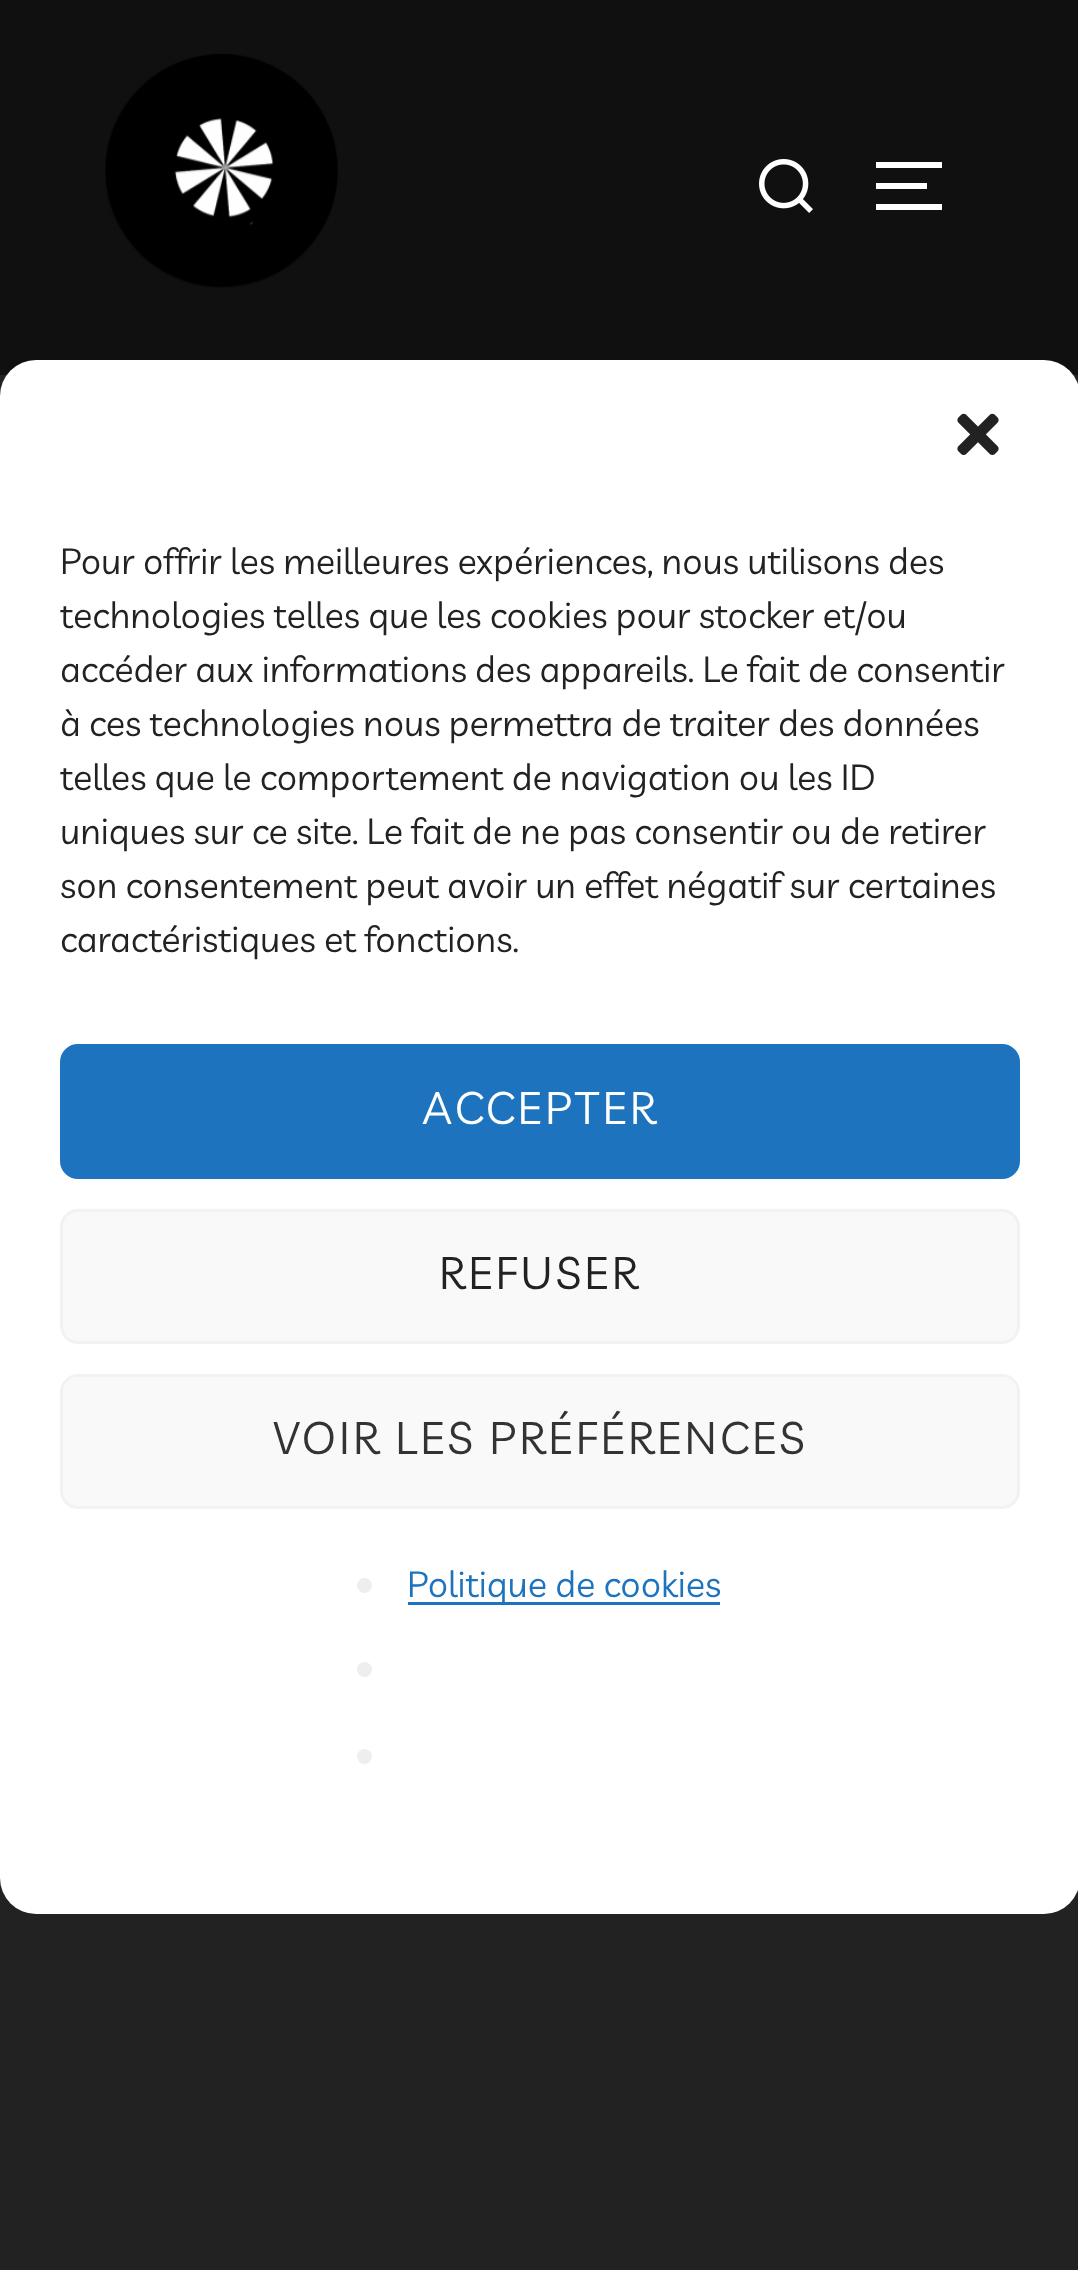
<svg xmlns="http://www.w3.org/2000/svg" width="1078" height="2270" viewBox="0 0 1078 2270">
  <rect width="100%" height="100%" fill="rgb(34,34,34)"/>
  <rect x="0" y="0" width="1078" height="375" fill="rgb(16,16,16)"/>
  <image x="105" y="54" width="233" height="234" href="pic1.png"/>
  <image x="759" y="159" width="54" height="54" href="pic2.png"/>
  <rect x="876" y="162" width="66" height="6" fill="rgb(255,255,255)"/>
  <rect x="876" y="183" width="51" height="6" fill="rgb(255,255,255)"/>
  <rect x="876" y="204" width="66" height="6" fill="rgb(255,255,255)"/>
  <rect x="0" y="360" width="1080" height="1554" rx="36" fill="rgb(255,255,255)"/>
  <image x="957" y="413" width="42" height="42" href="pic3.png"/>
  <g font-family="Livvic" font-size="36" fill="rgb(34,34,34)">
    <text>
      <tspan x="60" y="574">Pour offrir les meilleures expériences, nous utilisons des</tspan>
      <tspan x="60" y="628">technologies telles que les cookies pour stocker et/ou</tspan>
      <tspan x="60" y="682">accéder aux informations des appareils. Le fait de consentir</tspan>
      <tspan x="60" y="736">à ces technologies nous permettra de traiter des données</tspan>
      <tspan x="60" y="790">telles que le comportement de navigation ou les ID</tspan>
      <tspan x="60" y="844">uniques sur ce site. Le fait de ne pas consentir ou de retirer</tspan>
      <tspan x="60" y="898">son consentement peut avoir un effet négatif sur certaines</tspan>
      <tspan x="60" y="952">caractéristiques et fonctions.</tspan>
    </text>
  </g>
  <rect x="61.5" y="1045.5" width="957" height="132" rx="16.5" fill="rgb(30,115,190)" stroke="rgb(30,115,190)" stroke-width="3"/>
  <text x="422" y="1124" font-family="Livvic" font-size="45" letter-spacing="3" fill="rgb(255,255,255)">ACCEPTER</text>
  <rect x="61.5" y="1210.5" width="957" height="132" rx="16.5" fill="rgb(249,249,249)" stroke="rgb(242,242,242)" stroke-width="3"/>
  <text x="439" y="1289" font-family="Livvic" font-size="45" letter-spacing="3" fill="rgb(34,34,34)">REFUSER</text>
  <rect x="61.5" y="1375.5" width="957" height="132" rx="16.5" fill="rgb(249,249,249)" stroke="rgb(242,242,242)" stroke-width="3"/>
  <text x="273" y="1454" font-family="Livvic" font-size="45" letter-spacing="3" fill="rgb(51,51,51)">VOIR LES PRÉFÉRENCES</text>
  <circle cx="364.5" cy="1585.5" r="7.5" fill="rgb(238,238,238)"/>
  <rect x="408" y="1602" width="312" height="3" fill="rgb(30,115,190)"/>
  <text x="407" y="1597" font-family="Livvic" font-size="36" fill="rgb(30,115,190)">Politique de cookies</text>
  <circle cx="364.5" cy="1669.5" r="7.5" fill="rgb(238,238,238)"/>
  <circle cx="364.5" cy="1756.5" r="7.5" fill="rgb(238,238,238)"/>
</svg>
